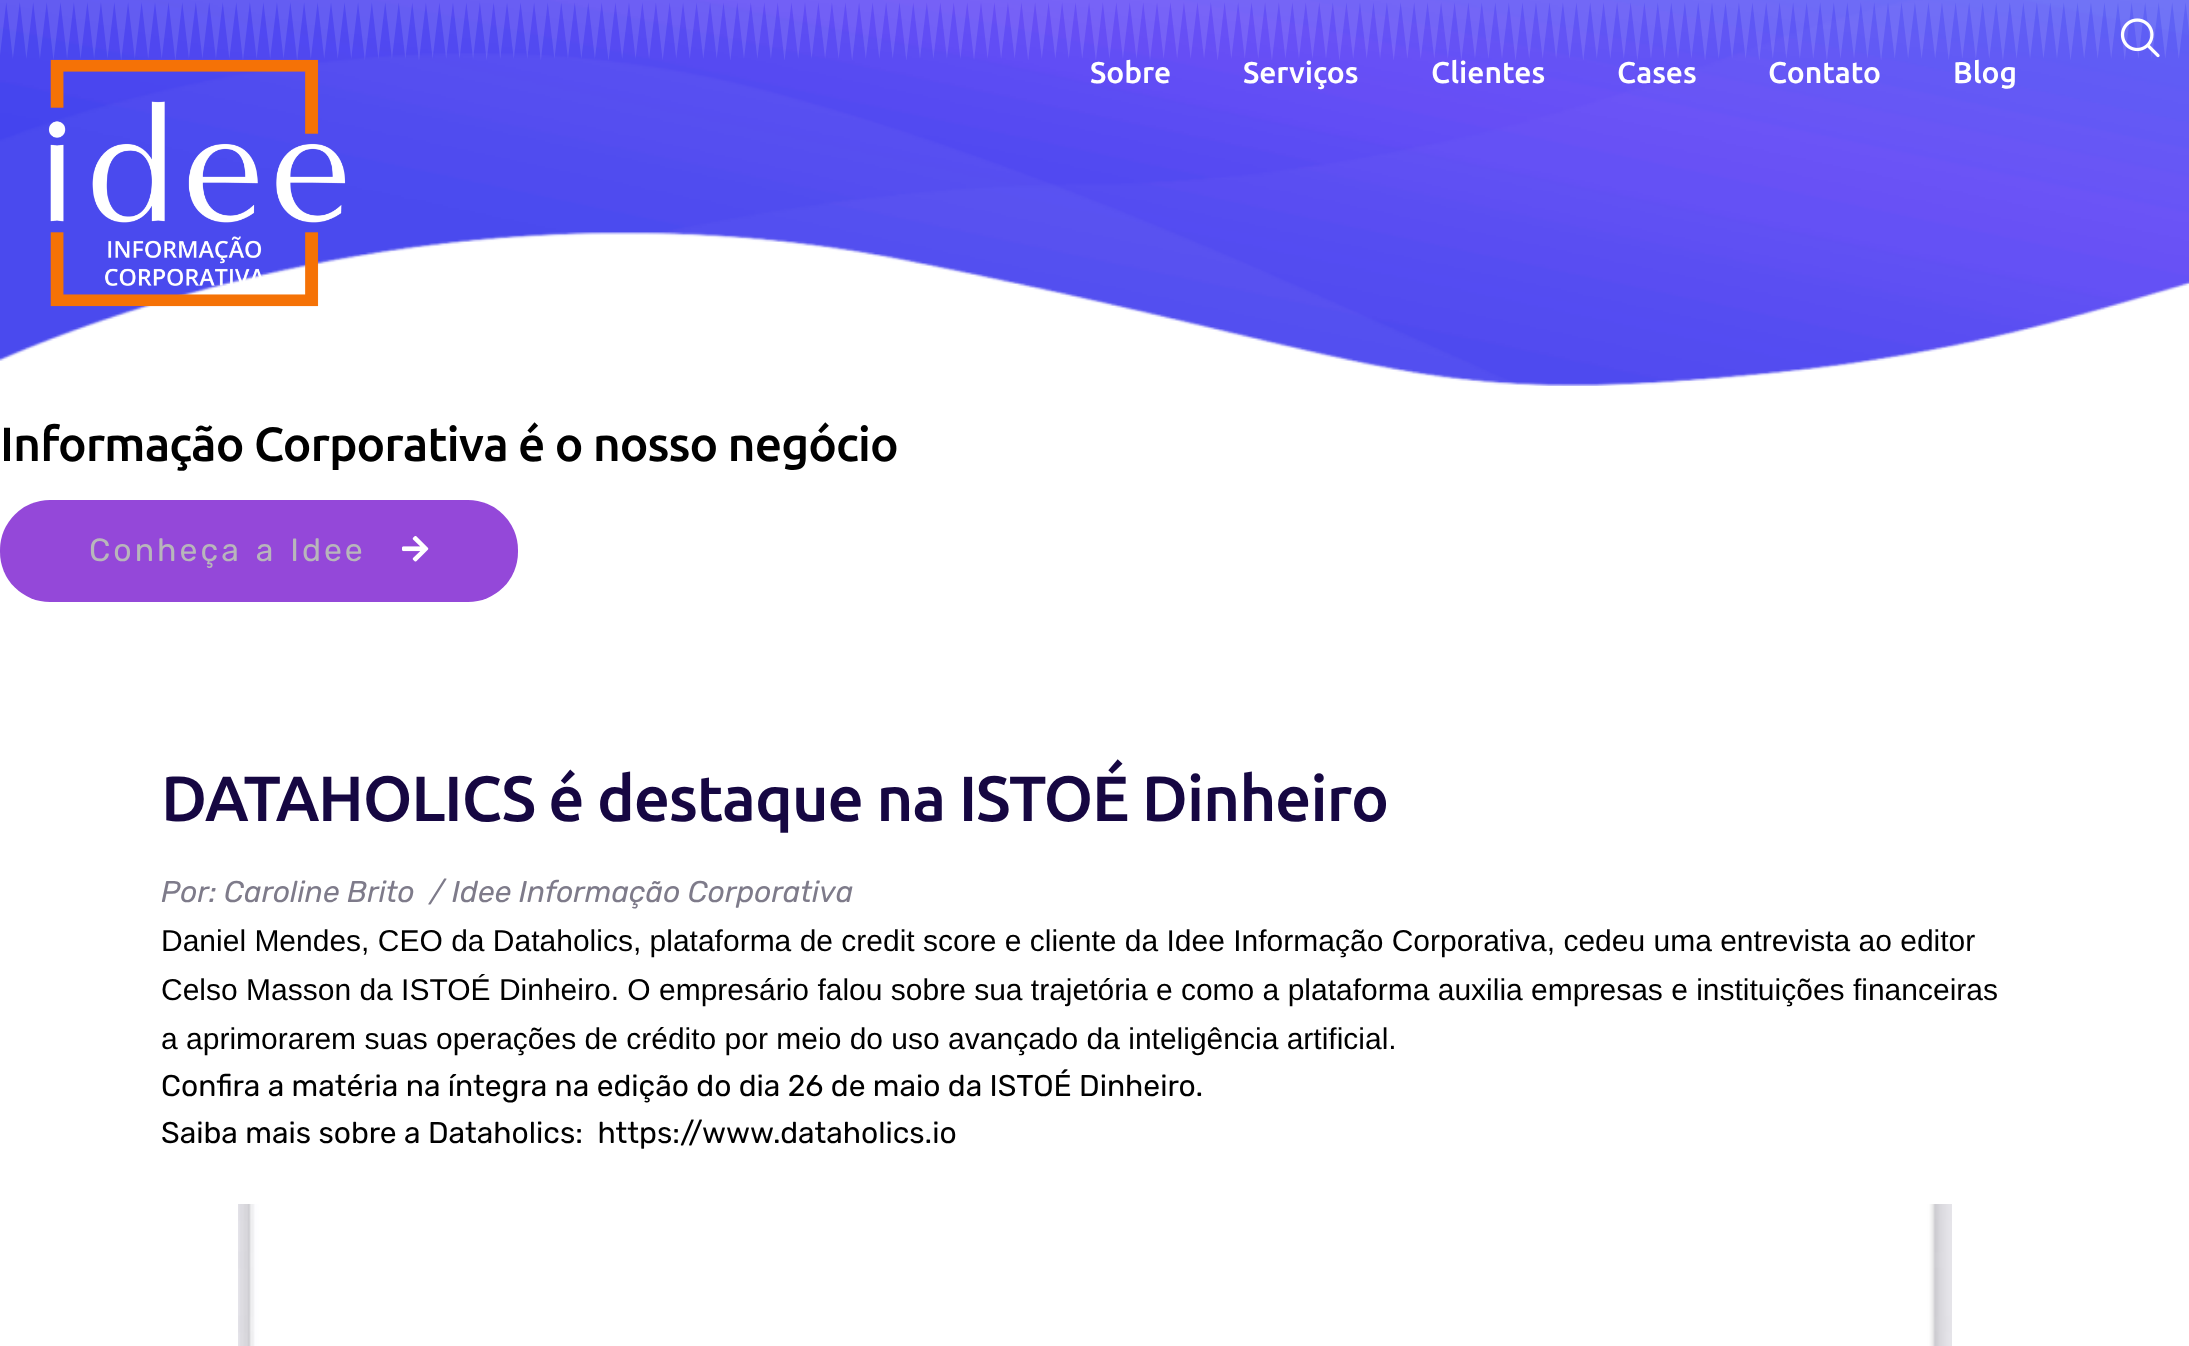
<svg xmlns="http://www.w3.org/2000/svg" width="2189" height="1346" viewBox="0 0 2189 1346">
  <rect width="100%" height="100%" fill="rgb(255,255,255)"/>
  <image x="0" y="0" width="2189" height="386" href="pic1.png"/>
  <image x="0" y="0" width="2189" height="60" href="pic2.png"/>
  <image x="48" y="59" width="298" height="248" href="pic3.png"/>
  <image x="2120" y="18" width="40" height="40" href="pic4.png"/>
  <g font-family="Ubuntu" font-size="30" font-weight="500" fill="rgb(255,255,255)">
    <text x="1090" y="83">Sobre</text>
    <text x="1243" y="83">Serviços</text>
    <text x="1431" y="83">Clientes</text>
    <text x="1617" y="83">Cases</text>
    <text x="1768" y="83">Contato</text>
    <text x="1953" y="83">Blog</text>
  </g>
  <text x="0" y="461" font-family="Ubuntu" font-size="48" font-weight="500" letter-spacing="-0.95" fill="rgb(0,0,0)">Informação Corporativa é o nosso negócio</text>
  <rect x="0" y="500" width="518" height="102" rx="50" fill="rgb(148,72,217)"/>
  <text x="89" y="561" word-spacing="3" font-family="Rubik" font-size="32" letter-spacing="3" fill="rgb(184,182,187)">Conheça a Idee</text>
  <image x="402" y="536" width="27" height="26" href="pic5.png"/>
  <text x="161" y="821" font-family="Ubuntu" font-size="63.75" font-weight="500" letter-spacing="-1.25" fill="rgb(22,7,66)">DATAHOLICS é destaque na ISTOÉ Dinheiro</text>
  <text x="161" y="902" font-family="Rubik" font-size="30" font-style="italic" fill="rgb(126,123,138)" xml:space="preserve">Por: Caroline Brito  / Idee Informação Corporativa</text>
  <g font-family="Liberation Sans" font-size="30" fill="rgb(0,0,0)">
    <text>
      <tspan x="161" y="951">Daniel Mendes, CEO da Dataholics, plataforma de credit score e cliente da Idee Informação Corporativa, cedeu uma entrevista ao editor</tspan>
      <tspan x="161" y="1000">Celso Masson da ISTOÉ Dinheiro. O empresário falou sobre sua trajetória e como a plataforma auxilia empresas e instituições financeiras</tspan>
      <tspan x="161" y="1049">a aprimorarem suas operações de crédito por meio do uso avançado da inteligência artificial.</tspan>
    </text>
  </g>
  <g font-family="Rubik" font-size="30" fill="rgb(0,0,0)">
    <text xml:space="preserve"><tspan x="161" y="1096">Confira a matéria na íntegra na edição do dia 26 de maio da ISTOÉ Dinheiro.</tspan><tspan x="161" y="1143">Saiba mais sobre a Dataholics:  https://www.dataholics.io</tspan></text>
  </g>
  <image x="238" y="1204" width="1714" height="142" href="pic6.png"/>
</svg>
